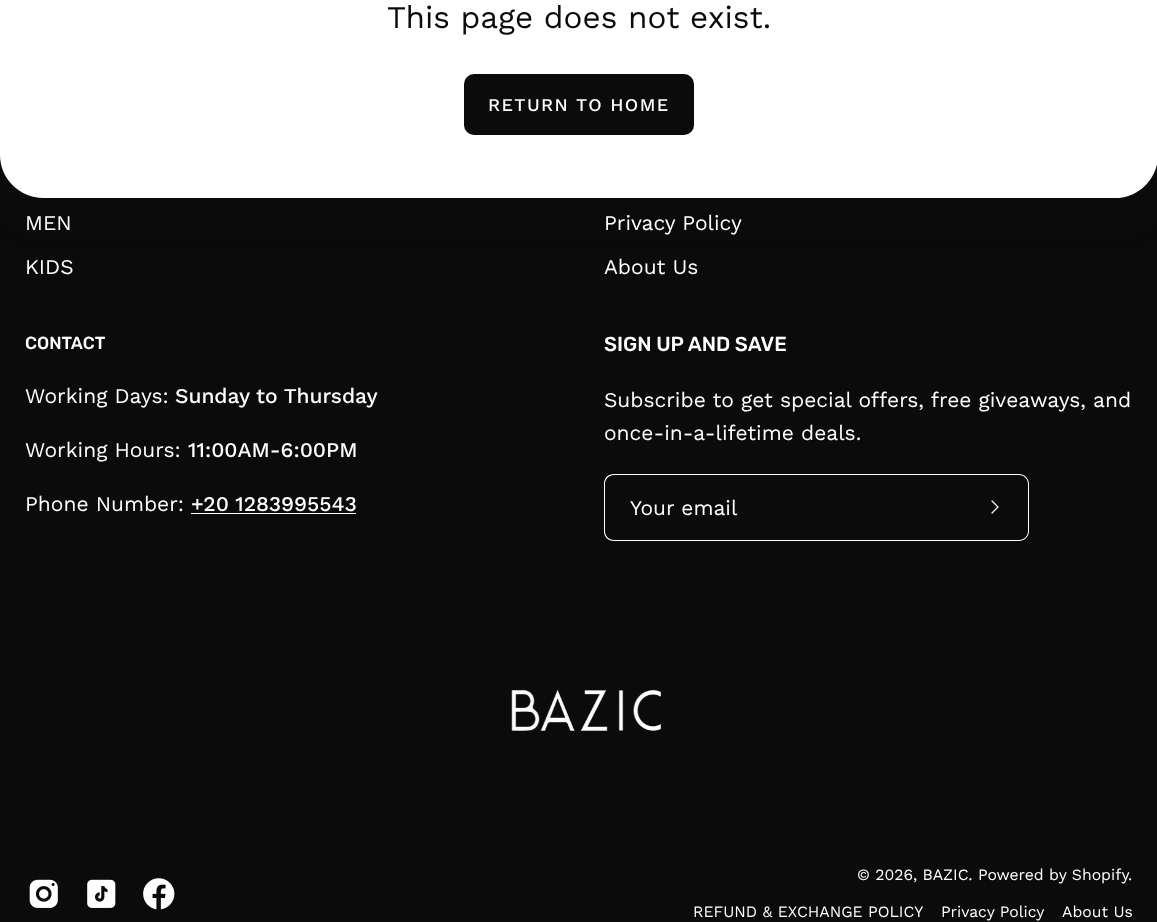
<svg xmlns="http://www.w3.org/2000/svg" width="1157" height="922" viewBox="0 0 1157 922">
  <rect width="100%" height="100%" fill="rgb(11,11,11)"/>
  <rect x="13" y="-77" width="1132" height="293" rx="30" fill="rgb(11,11,11)" filter="blur(15.5px)"/>
  <path d="M0-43H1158V155C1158 178.5 1138.5 198 1115 198H43C19.5 198 0 178.5 0 155Z" fill="rgb(255,255,255)"/>
  <text x="387" y="28" font-family="Work Sans" font-size="31.5" fill="rgb(11,11,11)">This page does not exist.</text>
  <rect x="464" y="74" width="230" height="61" rx="10" fill="rgb(11,11,11)"/>
  <text x="488" y="111" font-family="Work Sans" font-size="18" font-weight="500" letter-spacing="1.4" fill="rgb(255,255,255)">RETURN TO HOME</text>
  <g font-family="Work Sans" font-size="21" fill="rgb(255,255,255)">
    <text x="25" y="230">MEN</text>
    <text x="25" y="274">KIDS</text>
    <text x="604" y="230">Privacy Policy</text>
    <text x="604" y="274">About Us</text>
  </g>
  <text x="25" y="349" font-family="Rubik" font-size="17.5" font-weight="500" fill="rgb(255,255,255)">CONTACT</text>
  <text x="25" y="403" font-family="Work Sans" font-size="21" fill="rgb(255,255,255)">Working Days:</text>
  <text x="175" y="403" font-family="Work Sans" font-size="21" font-weight="500" fill="rgb(255,255,255)">Sunday to Thursday</text>
  <text x="25" y="457" font-family="Work Sans" font-size="21" fill="rgb(255,255,255)">Working Hours:</text>
  <text x="188" y="457" font-family="Work Sans" font-size="21" font-weight="500" fill="rgb(255,255,255)">11:00AM-6:00PM</text>
  <text x="25" y="511" font-family="Work Sans" font-size="21" fill="rgb(255,255,255)">Phone Number:</text>
  <text x="191" y="511" font-family="Work Sans" font-size="21" font-weight="500" fill="rgb(255,255,255)">+20 1283995543</text>
  <rect x="191" y="513" width="165" height="1" fill="rgb(255,255,255)"/>
  <text x="604" y="351" font-family="Rubik" font-size="20.25" font-weight="500" fill="rgb(255,255,255)">SIGN UP AND SAVE</text>
  <g font-family="Work Sans" font-size="21" fill="rgb(255,255,255)">
    <text>
      <tspan x="604" y="407">Subscribe to get special offers, free giveaways, and</tspan>
      <tspan x="604" y="440">once-in-a-lifetime deals.</tspan>
    </text>
  </g>
  <path d="M614 474H961V541H614C608 541 604 537 604 531V484C604 478 608 474 614 474ZM614 475H961V540H614C609 540 605 536 605 531V484C605 479 609 475 614 475Z" fill="rgb(255,255,255)" fill-rule="evenodd"/>
  <text x="630" y="515" font-family="Work Sans" font-size="21" fill="rgb(255,255,255)">Your email</text>
  <path d="M961 474H1019C1024 474 1029 478 1029 484V531C1029 537 1024 541 1019 541H961ZM961 475H1019C1024 475 1028 479 1028 484V531C1028 536 1024 540 1019 540H961Z" fill="rgb(255,255,255)" fill-rule="evenodd"/>
  <path d="M992 501L998 507L992 513" fill="none" stroke="rgb(255,255,255)" stroke-width="1.2" stroke-linecap="round" stroke-linejoin="round"/>
  <image x="511" y="689" width="150" height="42" href="pic1.png"/>
  <image x="29" y="879" width="29" height="29" href="pic2.png"/>
  <image x="87" y="879" width="29" height="29" href="pic3.png"/>
  <image x="143" y="878" width="32" height="32" href="pic4.png"/>
  <g font-family="Work Sans" font-size="15.75" fill="rgb(255,255,255)">
    <text x="857" y="880">© 2026, BAZIC. Powered by Shopify</text>
    <text x="1128" y="880">.</text>
    <text x="693" y="917">REFUND &amp; EXCHANGE POLICY</text>
    <text x="941" y="917">Privacy Policy</text>
    <text x="1062" y="917">About Us</text>
  </g>
</svg>
